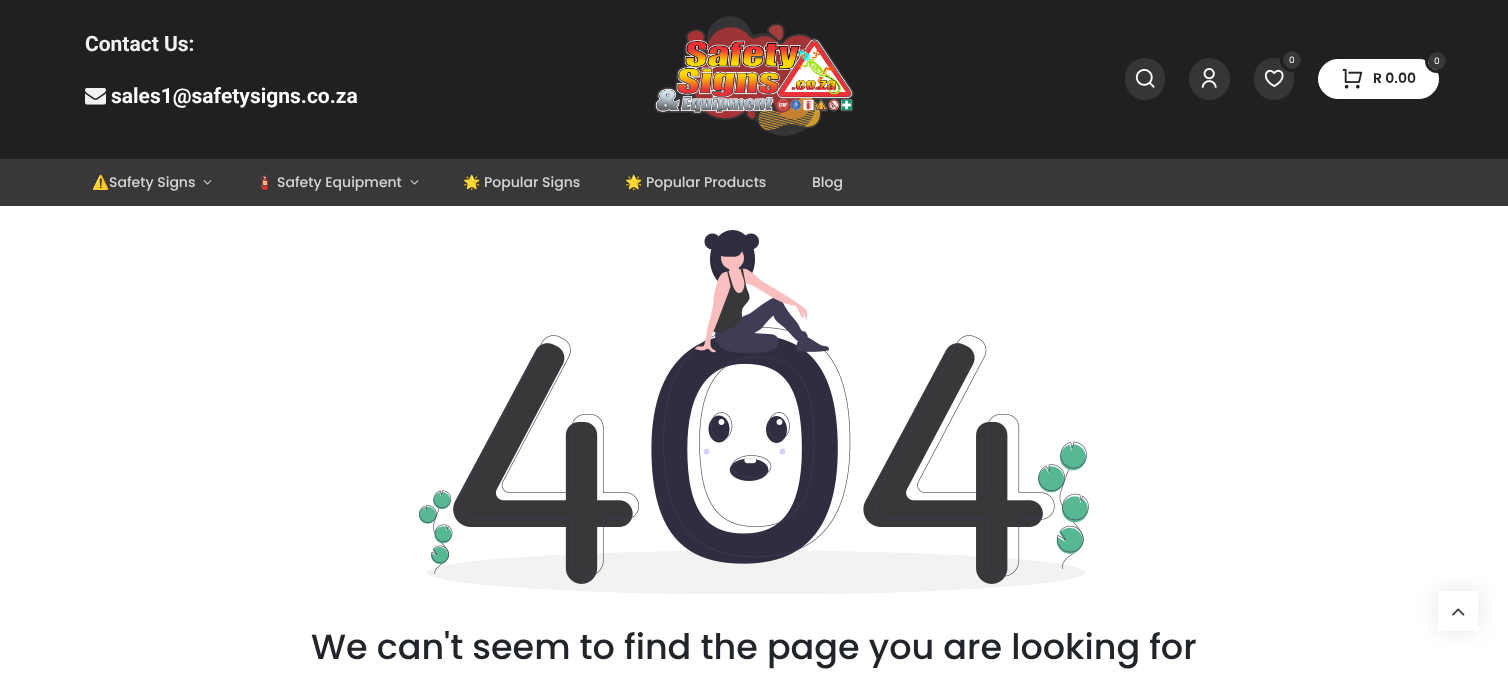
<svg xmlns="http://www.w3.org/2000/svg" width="1508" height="686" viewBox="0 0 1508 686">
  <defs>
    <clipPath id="clip1"><path d="M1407 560H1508V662H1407ZM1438 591H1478V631H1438Z" clip-rule="evenodd"/></clipPath>
  </defs>
  <rect width="100%" height="100%" fill="rgb(255,255,255)"/>
  <rect x="0" y="0" width="1508" height="159" fill="rgb(32,32,34)"/>
  <text x="85" y="51" font-family="Roboto" font-size="21" font-weight="bold" fill="rgb(242,242,243)">Contact Us:</text>
  <image x="85" y="88" width="21" height="17" href="pic1.png"/>
  <text x="111" y="103" font-family="Roboto" font-size="21" font-weight="bold" fill="rgb(255,255,255)">sales1@safetysigns.co.za</text>
  <image x="654" y="16" width="200" height="120" href="pic2.png"/>
  <rect x="1125" y="58" width="40" height="42" rx="20" fill="rgb(54,54,56)"/>
  <image x="1135" y="69" width="20" height="19" href="pic3.png"/>
  <rect x="1189" y="58" width="41" height="42" rx="20.5" fill="rgb(54,54,56)"/>
  <image x="1201" y="68" width="16" height="20" href="pic4.png"/>
  <rect x="1254" y="58" width="40" height="42" rx="20" fill="rgb(54,54,56)"/>
  <circle cx="1292" cy="60" r="9" fill="rgb(56,56,59)"/>
  <text x="1289" y="63" font-family="Poppins" font-size="9" fill="rgb(255,255,255)">0</text>
  <image x="1264" y="69" width="20" height="19" href="pic5.png"/>
  <circle cx="1292" cy="60" r="10.5" fill="none" stroke="rgb(32,32,34)" stroke-width="3"/>
  <rect x="1318.5" y="59.5" width="120" height="39" rx="19.5" fill="rgb(255,255,255)" stroke="rgb(255,255,255)"/>
  <circle cx="1437" cy="61" r="9" fill="rgb(56,56,59)"/>
  <text x="1434" y="64" font-family="Poppins" font-size="9" fill="rgb(255,255,255)">0</text>
  <circle cx="1437" cy="61" r="10.5" fill="none" stroke="rgb(32,32,34)" stroke-width="3"/>
  <image x="1342" y="68" width="21" height="21" href="pic6.png"/>
  <text x="1373" y="83" font-family="Poppins" font-size="14" font-weight="600" fill="rgb(33,37,41)">R 0.00</text>
  <rect x="0" y="159" width="1508" height="47" fill="rgb(56,56,59)"/>
  <text x="92" y="187" font-family="Noto Color Emoji" font-size="14" fill="rgb(215,215,216)">⚠️</text>
  <text x="109" y="187" font-family="Poppins" font-size="14" font-weight="500" fill="rgb(215,215,216)">Safety Signs</text>
  <image x="203" y="180" width="9" height="5" href="pic7.png"/>
  <text x="256" y="187" font-family="Noto Color Emoji" font-size="14" fill="rgb(215,215,216)">🧯️</text>
  <text x="277" y="187" font-family="Poppins" font-size="14" font-weight="500" fill="rgb(215,215,216)">Safety Equipment</text>
  <image x="410" y="180" width="9" height="5" href="pic7.png"/>
  <text x="463" y="187" font-family="Noto Color Emoji" font-size="14" fill="rgb(215,215,216)">🌟</text>
  <text x="484" y="187" font-family="Poppins" font-size="14" font-weight="500" fill="rgb(215,215,216)">Popular Signs</text>
  <text x="625" y="187" font-family="Noto Color Emoji" font-size="14" fill="rgb(215,215,216)">🌟</text>
  <g font-family="Poppins" font-size="14" font-weight="500" fill="rgb(215,215,216)">
    <text x="646" y="187">Popular Products</text>
    <text x="812" y="187">Blog</text>
  </g>
  <image x="419" y="230" width="670" height="364" href="pic8.png"/>
  <text x="311" y="659" font-family="Poppins" font-size="35" font-weight="500" fill="rgb(33,37,41)">We can't seem to find the page you are looking for</text>
  <g clip-path="url(#clip1)">
    <rect x="1438" y="591" width="40" height="40" fill="rgba(0,0,0,0.1)" filter="blur(10px)"/>
  </g>
  <image x="1452" y="608" width="13" height="8" href="pic9.png"/>
</svg>
